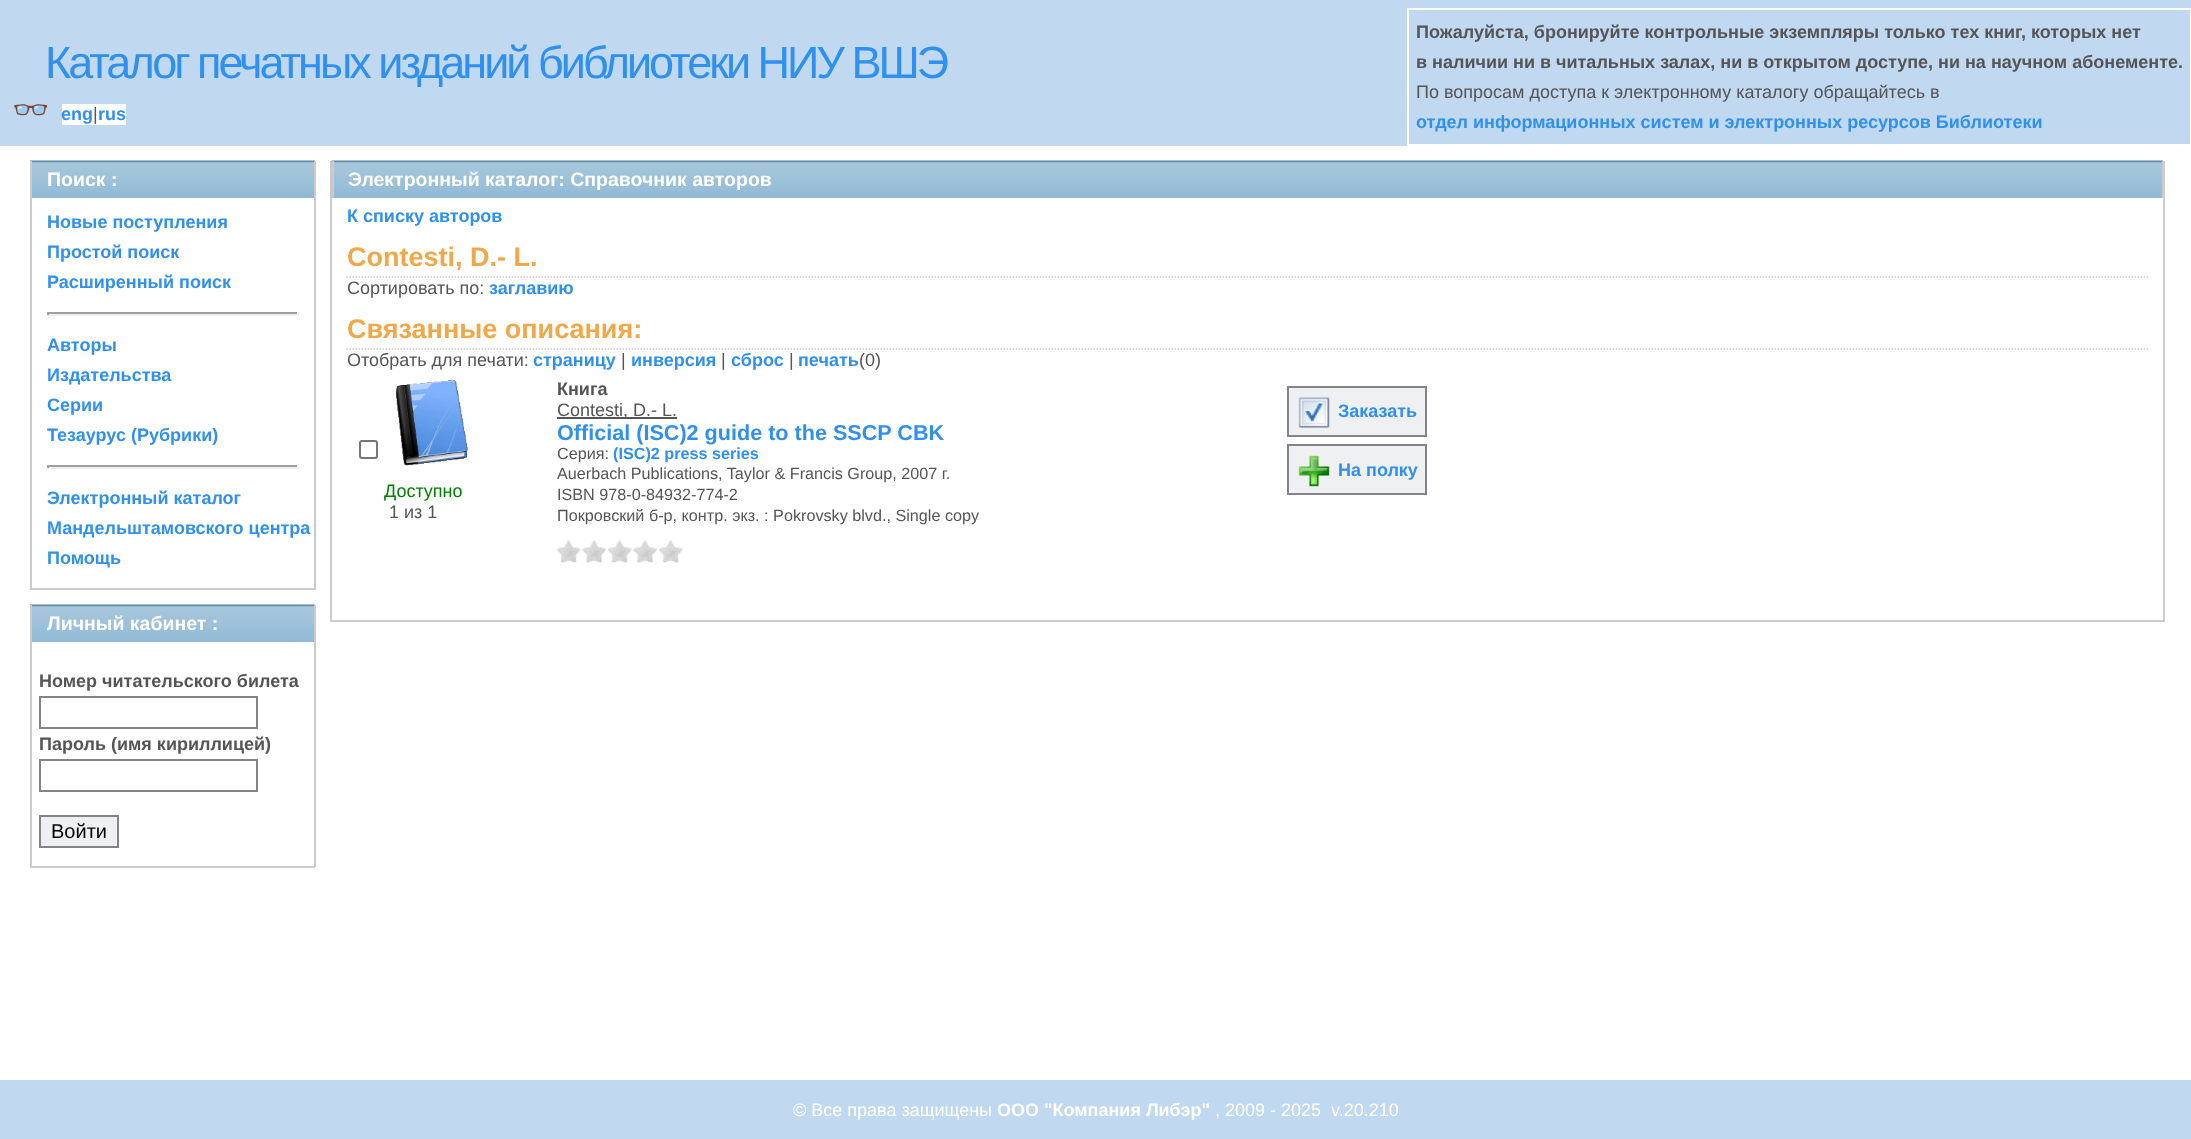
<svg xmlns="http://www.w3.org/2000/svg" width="2191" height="1139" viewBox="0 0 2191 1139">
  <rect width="100%" height="100%" fill="rgb(255,255,255)"/>
  <rect x="0" y="0" width="2191" height="146" fill="rgb(192,216,240)"/>
  <text x="45" y="78" font-family="Liberation Sans" font-size="45" letter-spacing="-3" fill="rgb(48,144,240)">Каталог печатных изданий библиотеки НИУ ВШЭ</text>
  <text x="12" y="120" font-family="Noto Color Emoji" font-size="30" font-weight="bold" fill="rgb(48,144,240)">👓</text>
  <rect x="62" y="104" width="64" height="21" fill="rgb(255,255,255)"/>
  <text x="61" y="120" font-family="Liberation Sans" font-size="18" font-weight="bold" fill="rgb(48,144,240)">eng rus</text>
  <text x="93" y="120" font-family="Liberation Sans" font-size="18" fill="rgb(85,85,85)">|</text>
  <rect x="1408" y="9" width="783" height="136" fill="none" stroke="rgb(255,255,255)" stroke-width="2"/>
  <g font-family="Liberation Sans" font-size="18" font-weight="bold" fill="rgb(85,85,85)">
    <text>
      <tspan x="1416" y="38">Пожалуйста, бронируйте контрольные экземпляры только тех книг, которых нет</tspan>
      <tspan x="1416" y="68">в наличии ни в читальных залах, ни в открытом доступе, ни на научном абонементе.</tspan>
    </text>
  </g>
  <text x="1416" y="98" font-family="Liberation Sans" font-size="18" fill="rgb(85,85,85)">По вопросам доступа к электронному каталогу обращайтесь в</text>
  <text x="1416" y="128" font-family="Liberation Sans" font-size="18" font-weight="bold" fill="rgb(48,144,240)">отдел информационных систем и электронных ресурсов Библиотеки</text>
  <image x="30" y="160" width="285" height="38" href="pic1.png"/>
  <rect x="314" y="161" width="2" height="429" fill="rgb(204,204,204)"/>
  <rect x="30" y="161" width="2" height="37" fill="rgb(204,204,204)"/>
  <text x="47" y="186" font-family="Liberation Sans" font-size="19.5" font-weight="bold" fill="rgb(255,255,255)">Поиск :</text>
  <rect x="30" y="588" width="285" height="2" fill="rgb(204,204,204)"/>
  <rect x="30" y="198" width="2" height="392" fill="rgb(204,204,204)"/>
  <g font-family="Liberation Sans" font-size="18" font-weight="bold" fill="rgb(48,144,240)">
    <text>
      <tspan x="47" y="228">Новые поступления</tspan>
      <tspan x="47" y="258">Простой поиск</tspan>
      <tspan x="47" y="288">Расширенный поиск</tspan>
    </text>
  </g>
  <rect x="47" y="312" width="252" height="2" fill="rgb(159,159,159)"/>
  <rect x="297" y="312" width="2" height="3" fill="rgb(238,238,238)"/>
  <rect x="47" y="314" width="252" height="2" fill="rgb(238,238,238)"/>
  <rect x="47" y="312" width="2" height="3" fill="rgb(159,159,159)"/>
  <g font-family="Liberation Sans" font-size="18" font-weight="bold" fill="rgb(48,144,240)">
    <text>
      <tspan x="47" y="351">Авторы</tspan>
      <tspan x="47" y="381">Издательства</tspan>
      <tspan x="47" y="411">Серии</tspan>
      <tspan x="47" y="441">Тезаурус (Рубрики)</tspan>
    </text>
  </g>
  <rect x="47" y="465" width="252" height="2" fill="rgb(159,159,159)"/>
  <rect x="297" y="465" width="2" height="3" fill="rgb(238,238,238)"/>
  <rect x="47" y="467" width="252" height="2" fill="rgb(238,238,238)"/>
  <rect x="47" y="465" width="2" height="3" fill="rgb(159,159,159)"/>
  <g font-family="Liberation Sans" font-size="18" font-weight="bold" fill="rgb(48,144,240)">
    <text>
      <tspan x="47" y="504">Электронный каталог</tspan>
      <tspan x="47" y="534">Мандельштамовского центра</tspan>
      <tspan x="47" y="564">Помощь</tspan>
    </text>
  </g>
  <image x="30" y="604" width="285" height="38" href="pic1.png"/>
  <rect x="314" y="605" width="2" height="262" fill="rgb(204,204,204)"/>
  <rect x="30" y="605" width="2" height="37" fill="rgb(204,204,204)"/>
  <text x="47" y="630" font-family="Liberation Sans" font-size="19.5" font-weight="bold" fill="rgb(255,255,255)">Личный кабинет :</text>
  <rect x="30" y="866" width="285" height="2" fill="rgb(204,204,204)"/>
  <rect x="30" y="642" width="2" height="225" fill="rgb(204,204,204)"/>
  <text x="39" y="687" font-family="Liberation Sans" font-size="18" font-weight="bold" fill="rgb(85,85,85)">Номер читательского билета</text>
  <rect x="40" y="697" width="217" height="31" fill="none" stroke="rgb(132,131,136)" stroke-width="2"/>
  <text x="39" y="750" font-family="Liberation Sans" font-size="18" font-weight="bold" fill="rgb(85,85,85)">Пароль (имя кириллицей)</text>
  <rect x="40" y="760" width="217" height="31" fill="none" stroke="rgb(132,131,136)" stroke-width="2"/>
  <rect x="40" y="816" width="78" height="31" fill="rgb(238,240,241)" stroke="rgb(132,131,136)" stroke-width="2"/>
  <text x="51" y="838" font-family="Liberation Sans" font-size="20" fill="rgb(0,0,0)">Войти</text>
  <rect x="2163" y="161" width="2" height="460" fill="rgb(204,204,204)"/>
  <rect x="330" y="620" width="1835" height="2" fill="rgb(204,204,204)"/>
  <rect x="330" y="161" width="2" height="460" fill="rgb(204,204,204)"/>
  <image x="331" y="160" width="1832" height="38" href="pic2.png"/>
  <rect x="2162" y="161" width="1" height="37" fill="rgb(204,204,204)"/>
  <rect x="332" y="161" width="2" height="37" fill="rgb(204,204,204)"/>
  <text x="348" y="186" font-family="Liberation Sans" font-size="19.5" font-weight="bold" fill="rgb(255,255,255)">Электронный каталог: Справочник авторов</text>
  <text x="347" y="222" font-family="Liberation Sans" font-size="18" font-weight="bold" fill="rgb(48,144,240)">К списку авторов</text>
  <path d="M346.5 277H2148" fill="none" stroke="rgb(204,204,204)" stroke-width="1.5" stroke-dasharray="1.5 1.5"/>
  <text x="347" y="266" font-family="Liberation Sans" font-size="27" font-weight="bold" fill="rgb(240,168,72)">Contesti, D.- L.</text>
  <text x="347" y="294" font-family="Liberation Sans" font-size="18" fill="rgb(85,85,85)">Сортировать по:</text>
  <text x="489" y="294" font-family="Liberation Sans" font-size="18" font-weight="bold" fill="rgb(48,144,240)">заглавию</text>
  <path d="M346.5 349H2148" fill="none" stroke="rgb(204,204,204)" stroke-width="1.5" stroke-dasharray="1.5 1.5"/>
  <text x="347" y="338" font-family="Liberation Sans" font-size="27" font-weight="bold" fill="rgb(240,168,72)">Связанные описания:</text>
  <text x="347" y="366" font-family="Liberation Sans" font-size="18" fill="rgb(85,85,85)">Отобрать для печати:</text>
  <text x="533" y="366" font-family="Liberation Sans" font-size="18" font-weight="bold" fill="rgb(48,144,240)">страницу</text>
  <text x="621" y="366" font-family="Liberation Sans" font-size="18" fill="rgb(85,85,85)">|</text>
  <text x="631" y="366" font-family="Liberation Sans" font-size="18" font-weight="bold" fill="rgb(48,144,240)">инверсия</text>
  <text x="721" y="366" font-family="Liberation Sans" font-size="18" fill="rgb(85,85,85)">|</text>
  <text x="731" y="366" font-family="Liberation Sans" font-size="18" font-weight="bold" fill="rgb(48,144,240)">сброс</text>
  <text x="789" y="366" font-family="Liberation Sans" font-size="18" fill="rgb(85,85,85)">|</text>
  <text x="798" y="366" font-family="Liberation Sans" font-size="18" font-weight="bold" fill="rgb(48,144,240)">печать</text>
  <text x="859" y="366" font-family="Liberation Sans" font-size="18" fill="rgb(85,85,85)">(0)</text>
  <text x="557" y="395" font-family="Liberation Sans" font-size="18" font-weight="bold" fill="rgb(85,85,85)">Книга</text>
  <rect x="557" y="417" width="120" height="2" fill="rgb(85,85,85)"/>
  <text x="557" y="416" font-family="Liberation Sans" font-size="18" fill="rgb(85,85,85)">Contesti, D.- L.</text>
  <text x="557" y="440" font-family="Liberation Sans" font-size="21.6" font-weight="bold" fill="rgb(48,144,240)">Official (ISC)2 guide to the SSCP CBK</text>
  <text x="557" y="459" font-family="Liberation Sans" font-size="16.2" fill="rgb(85,85,85)">Серия:</text>
  <text x="613" y="459" font-family="Liberation Sans" font-size="16.2" font-weight="bold" fill="rgb(48,144,240)">(ISC)2 press series</text>
  <g font-family="Liberation Sans" font-size="16.2" fill="rgb(85,85,85)">
    <text>
      <tspan x="557" y="479">Auerbach Publications, Taylor &amp; Francis Group, 2007 г.</tspan>
      <tspan x="557" y="500">ISBN 978-0-84932-774-2</tspan>
      <tspan x="557" y="521">Покровский б-р, контр. экз. : Pokrovsky blvd., Single copy</tspan>
    </text>
  </g>
  <image x="556" y="540" width="25" height="23" href="pic3.png"/>
  <image x="582" y="540" width="24" height="23" href="pic4.png"/>
  <image x="607" y="540" width="25" height="23" href="pic3.png"/>
  <image x="633" y="540" width="24" height="23" href="pic5.png"/>
  <image x="658" y="540" width="25" height="23" href="pic3.png"/>
  <rect x="1288" y="387" width="138" height="49" fill="rgb(238,240,241)" stroke="rgb(132,131,136)" stroke-width="2"/>
  <image x="1298" y="397" width="32" height="31" href="pic6.png"/>
  <text x="1338" y="417" font-family="Liberation Sans" font-size="18" font-weight="bold" fill="rgb(48,144,240)">Заказать</text>
  <rect x="1288" y="445" width="138" height="49" fill="rgb(238,240,241)" stroke="rgb(132,131,136)" stroke-width="2"/>
  <image x="1298" y="455" width="32" height="32" href="pic7.png"/>
  <text x="1338" y="476" font-family="Liberation Sans" font-size="18" font-weight="bold" fill="rgb(48,144,240)">На полку</text>
  <rect x="360" y="441" width="17" height="17" rx="2" fill="none" stroke="rgb(118,118,118)" stroke-width="2"/>
  <image x="396" y="380" width="72" height="86" href="pic8.png"/>
  <text x="384" y="497" font-family="Liberation Sans" font-size="18" fill="rgb(0,128,0)">Доступно</text>
  <text x="389" y="518" font-family="Liberation Sans" font-size="18" fill="rgb(85,85,85)">1 из 1</text>
  <rect x="0" y="1080" width="2191" height="59" fill="rgb(192,216,240)"/>
  <text x="793" y="1116" font-family="Liberation Sans" font-size="18" fill="rgb(255,255,255)">© Все права защищены</text>
  <text x="997" y="1116" font-family="Liberation Sans" font-size="18" font-weight="bold" fill="rgb(255,255,255)">ООО "Компания Либэр"</text>
  <text x="1215" y="1116" font-family="Liberation Sans" font-size="18" fill="rgb(255,255,255)" xml:space="preserve">, 2009 - 2025  v.20.210</text>
</svg>
